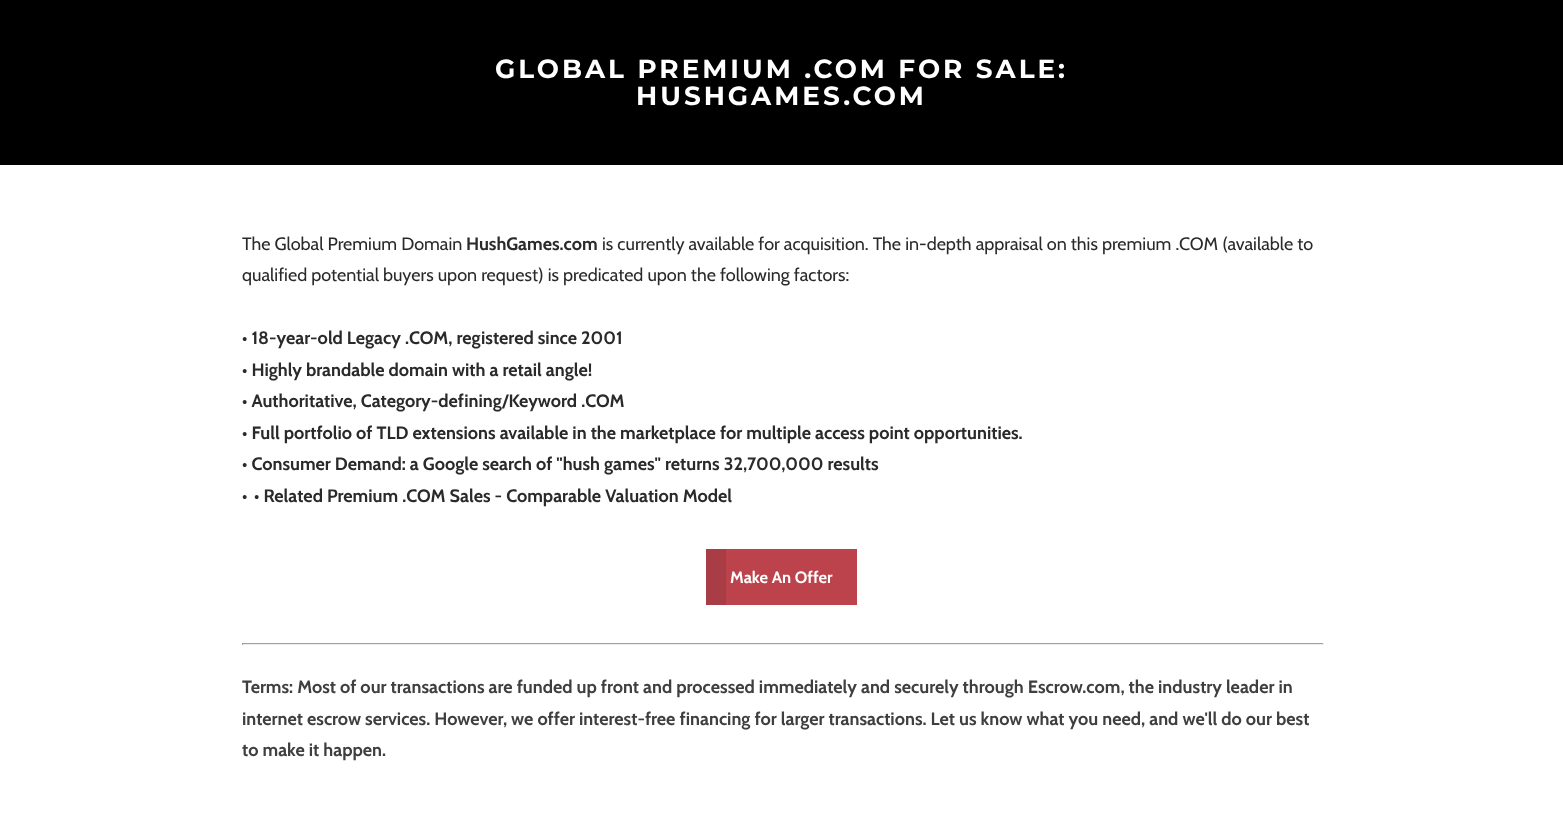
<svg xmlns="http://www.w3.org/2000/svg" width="1563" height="820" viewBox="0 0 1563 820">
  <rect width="100%" height="100%" fill="rgb(255,255,255)"/>
  <rect x="0" y="0" width="1563" height="165" fill="rgb(0,0,0)"/>
  <g font-family="Montserrat" font-size="26.25" font-weight="bold" letter-spacing="3" fill="rgb(255,255,255)">
    <text x="495" y="78">GLOBAL PREMIUM .COM FOR SALE:</text>
    <text x="636" y="105">HUSHGAMES.COM</text>
  </g>
  <text x="242" y="250" font-family="Cabin" font-size="18" fill="rgb(42,42,42)">The Global Premium Domain</text>
  <text x="466" y="250" font-family="Cabin" font-size="18" font-weight="bold" fill="rgb(42,42,42)">HushGames.com</text>
  <g font-family="Cabin" font-size="18" fill="rgb(42,42,42)">
    <text x="602" y="250">is currently available for acquisition. The in-depth appraisal on this premium .COM (available to</text>
    <text x="242" y="281">qualified potential buyers upon request) is predicated upon the following factors:</text>
  </g>
  <g font-family="Cabin" font-size="18" font-weight="bold" fill="rgb(42,42,42)">
    <text>
      <tspan x="242" y="344">• 18-year-old Legacy .COM, registered since 2001</tspan>
      <tspan x="242" y="376">• Highly brandable domain with a retail angle!</tspan>
      <tspan x="242" y="407">• Authoritative, Category-defining/Keyword .COM</tspan>
      <tspan x="242" y="439">• Full portfolio of TLD extensions available in the marketplace for multiple access point opportunities.</tspan>
      <tspan x="242" y="470">• Consumer Demand: a Google search of "hush games" returns 32,700,000 results</tspan>
      <tspan x="242" y="502">•</tspan>
    </text>
    <text x="254" y="502">• Related Premium .COM Sales - Comparable Valuation Model</text>
  </g>
  <rect x="726" y="549" width="131" height="56" fill="rgb(188,67,75)"/>
  <rect x="706" y="549" width="20" height="56" fill="rgb(168,61,69)"/>
  <text x="730" y="583" font-family="Cabin" font-size="16.5" font-weight="bold" fill="rgb(255,255,255)">Make An Offer</text>
  <rect x="242" y="643" width="1082" height="1" fill="rgb(159,159,159)"/>
  <rect x="1323" y="643" width="1" height="2" fill="rgb(238,238,238)"/>
  <rect x="242" y="644" width="1082" height="1" fill="rgb(238,238,238)"/>
  <rect x="242" y="643" width="1" height="2" fill="rgb(159,159,159)"/>
  <g font-family="Cabin" font-size="18" font-weight="bold" fill="rgb(63,63,63)">
    <text>
      <tspan x="242" y="693">Terms: Most of our transactions are funded up front and processed immediately and securely through Escrow.com, the industry leader in</tspan>
      <tspan x="242" y="725">internet escrow services. However, we offer interest-free financing for larger transactions. Let us know what you need, and we'll do our best</tspan>
      <tspan x="242" y="756">to make it happen.</tspan>
    </text>
  </g>
</svg>
